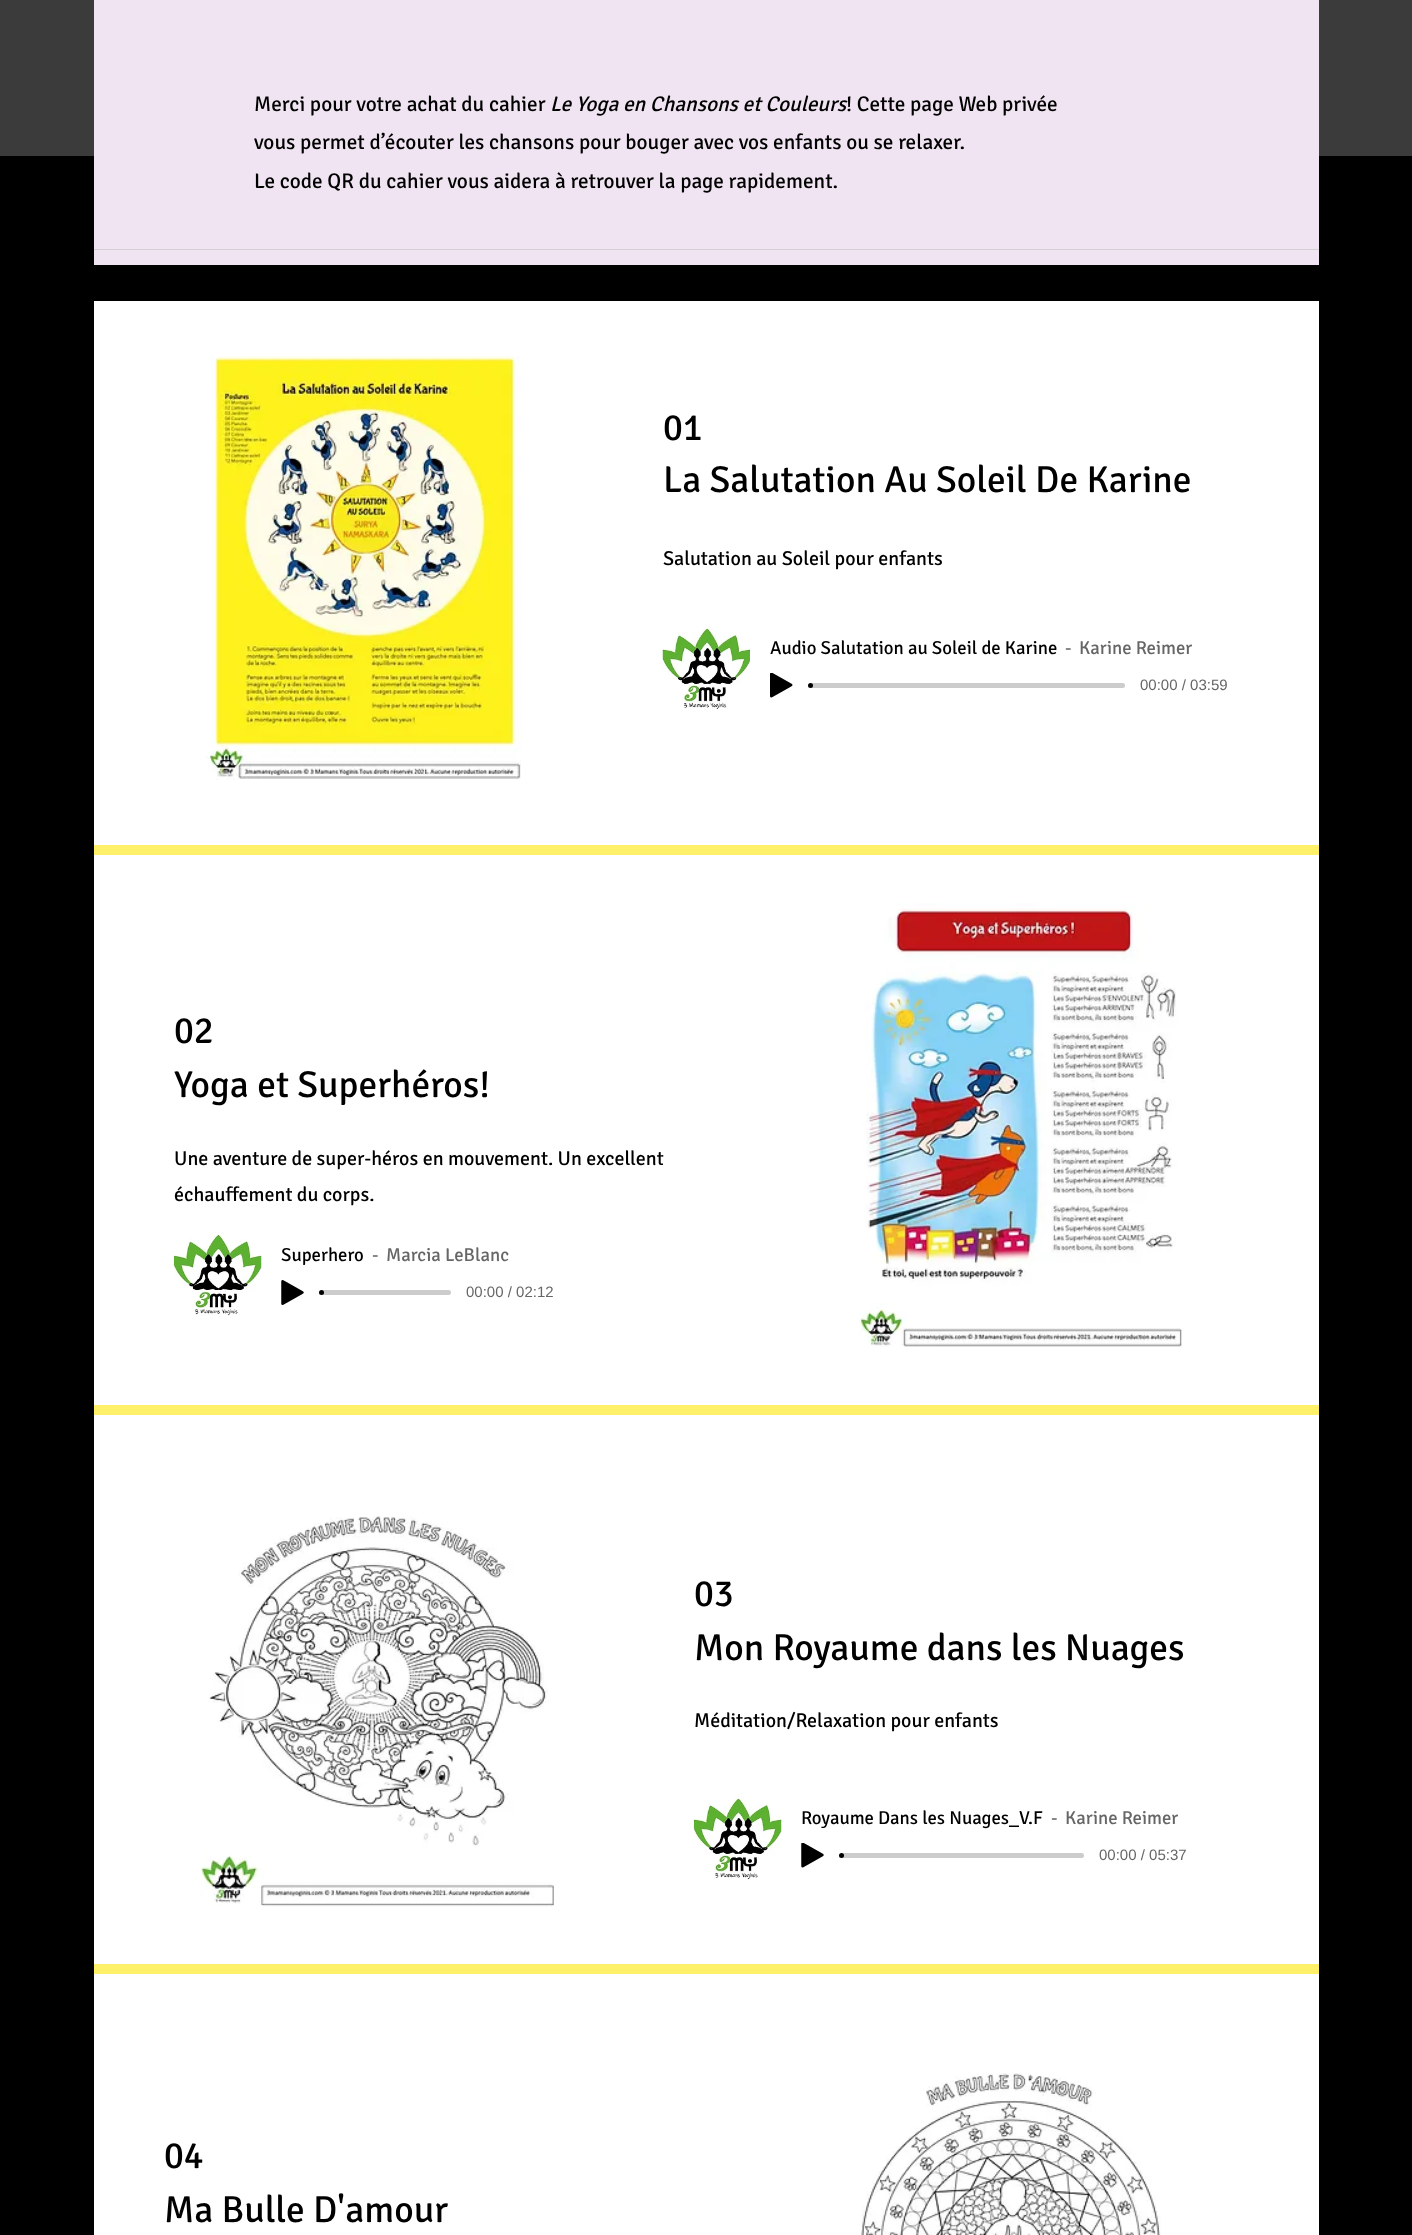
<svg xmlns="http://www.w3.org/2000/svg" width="1412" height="2235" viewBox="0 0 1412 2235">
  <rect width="100%" height="100%" fill="rgb(0,0,0)"/>
  <rect x="0" y="0" width="1412" height="156" fill="rgb(59,59,59)"/>
  <rect x="94" y="0" width="1225" height="265" fill="rgb(240,228,242)"/>
  <text x="254" y="111" font-family="Signika" font-size="21.25" fill="rgb(0,0,0)">Merci pour votre achat du cahier</text>
  <text x="550" y="111" font-family="Signika" font-size="21.25" font-style="italic" fill="rgb(0,0,0)">Le Yoga en Chansons et Couleurs</text>
  <g font-family="Signika" font-size="21.25" fill="rgb(0,0,0)">
    <text x="846" y="111">! Cette page Web privée</text>
    <text>
      <tspan x="254" y="149">vous permet d’écouter les chansons pour bouger avec vos enfants ou se relaxer.</tspan>
      <tspan x="254" y="188">Le code QR du cahier vous aidera à retrouver la page rapidement.</tspan>
    </text>
  </g>
  <rect x="94" y="249" width="1225" height="1" fill="rgb(209,209,209)"/>
  <rect x="94" y="301" width="1225" height="1934" fill="rgb(255,255,255)"/>
  <image x="206" y="356" width="315" height="424" href="pic1.png"/>
  <g font-family="Signika" font-size="37.5" fill="rgb(0,0,0)">
    <text>
      <tspan x="663" y="440">01</tspan>
      <tspan x="663" y="492">La Salutation Au Soleil De Karine</tspan>
    </text>
  </g>
  <text x="663" y="565" font-family="Signika" font-size="20" fill="rgb(0,0,0)">Salutation au Soleil pour enfants</text>
  <image x="662" y="625" width="88" height="84" href="pic2.png"/>
  <text x="770" y="654" font-family="Signika" font-size="18.75" fill="rgb(0,0,0)">Audio Salutation au Soleil de Karine</text>
  <g font-family="Signika" font-size="18.75" fill="rgb(102,102,102)">
    <text x="1065" y="654">-</text>
    <text x="1079" y="654">Karine Reimer</text>
  </g>
  <image x="770" y="673" width="23" height="25" href="pic3.png"/>
  <rect x="810" y="683" width="315" height="5" rx="2.5" fill="rgb(204,204,204)"/>
  <circle cx="810.5" cy="685.5" r="2.5" fill="rgb(0,0,0)"/>
  <text x="1140" y="690" font-family="Liberation Sans" font-size="15" fill="rgb(102,102,102)">00:00 / 03:59</text>
  <rect x="94" y="845" width="1225" height="10" fill="rgb(255,240,105)"/>
  <text x="174" y="1043" font-family="Signika" font-size="37.5" fill="rgb(0,0,0)">02</text>
  <image x="859" y="903" width="323" height="444" href="pic4.png"/>
  <text x="174" y="1097" font-family="Signika" font-size="37.5" fill="rgb(0,0,0)">Yoga et Superhéros!</text>
  <g font-family="Signika" font-size="20" fill="rgb(0,0,0)">
    <text>
      <tspan x="174" y="1165">Une aventure de super-héros en mouvement. Un excellent</tspan>
      <tspan x="174" y="1201">échauffement du corps.</tspan>
    </text>
  </g>
  <image x="173" y="1231" width="89" height="85" href="pic5.png"/>
  <text x="281" y="1261" font-family="Signika" font-size="18.75" fill="rgb(0,0,0)">Superhero</text>
  <g font-family="Signika" font-size="18.75" fill="rgb(102,102,102)">
    <text x="372" y="1261">-</text>
    <text x="386" y="1261">Marcia LeBlanc</text>
  </g>
  <image x="281" y="1280" width="23" height="25" href="pic6.png"/>
  <rect x="321" y="1290" width="130" height="5" rx="2.5" fill="rgb(204,204,204)"/>
  <circle cx="321.5" cy="1292.5" r="2.5" fill="rgb(0,0,0)"/>
  <text x="466" y="1297" font-family="Liberation Sans" font-size="15" fill="rgb(102,102,102)">00:00 / 02:12</text>
  <rect x="94" y="1405" width="1225" height="10" fill="rgb(255,240,105)"/>
  <image x="200" y="1516" width="354" height="391" href="pic7.png"/>
  <g font-family="Signika" font-size="37.5" fill="rgb(0,0,0)">
    <text>
      <tspan x="694" y="1606">03</tspan>
      <tspan x="694" y="1660">Mon Royaume dans les Nuages</tspan>
    </text>
  </g>
  <text x="694" y="1727" font-family="Signika" font-size="20" fill="rgb(0,0,0)">Méditation/Relaxation pour enfants</text>
  <image x="693" y="1795" width="89" height="85" href="pic8.png"/>
  <text x="801" y="1824" font-family="Signika" font-size="18.75" fill="rgb(0,0,0)">Royaume Dans les Nuages_V.F</text>
  <g font-family="Signika" font-size="18.75" fill="rgb(102,102,102)">
    <text x="1051" y="1824">-</text>
    <text x="1065" y="1824">Karine Reimer</text>
  </g>
  <image x="801" y="1843" width="23" height="25" href="pic9.png"/>
  <rect x="841" y="1853" width="243" height="5" rx="2.5" fill="rgb(204,204,204)"/>
  <circle cx="841.5" cy="1855.5" r="2.5" fill="rgb(0,0,0)"/>
  <text x="1099" y="1860" font-family="Liberation Sans" font-size="15" fill="rgb(102,102,102)">00:00 / 05:37</text>
  <rect x="94" y="1964" width="1225" height="10" fill="rgb(255,240,105)"/>
  <text x="164" y="2168" font-family="Signika" font-size="37.5" fill="rgb(0,0,0)">04</text>
  <image x="861" y="2073" width="300" height="162" href="pic10.png"/>
  <text x="164" y="2222" font-family="Signika" font-size="37.5" fill="rgb(0,0,0)">Ma Bulle D'amour</text>
</svg>
